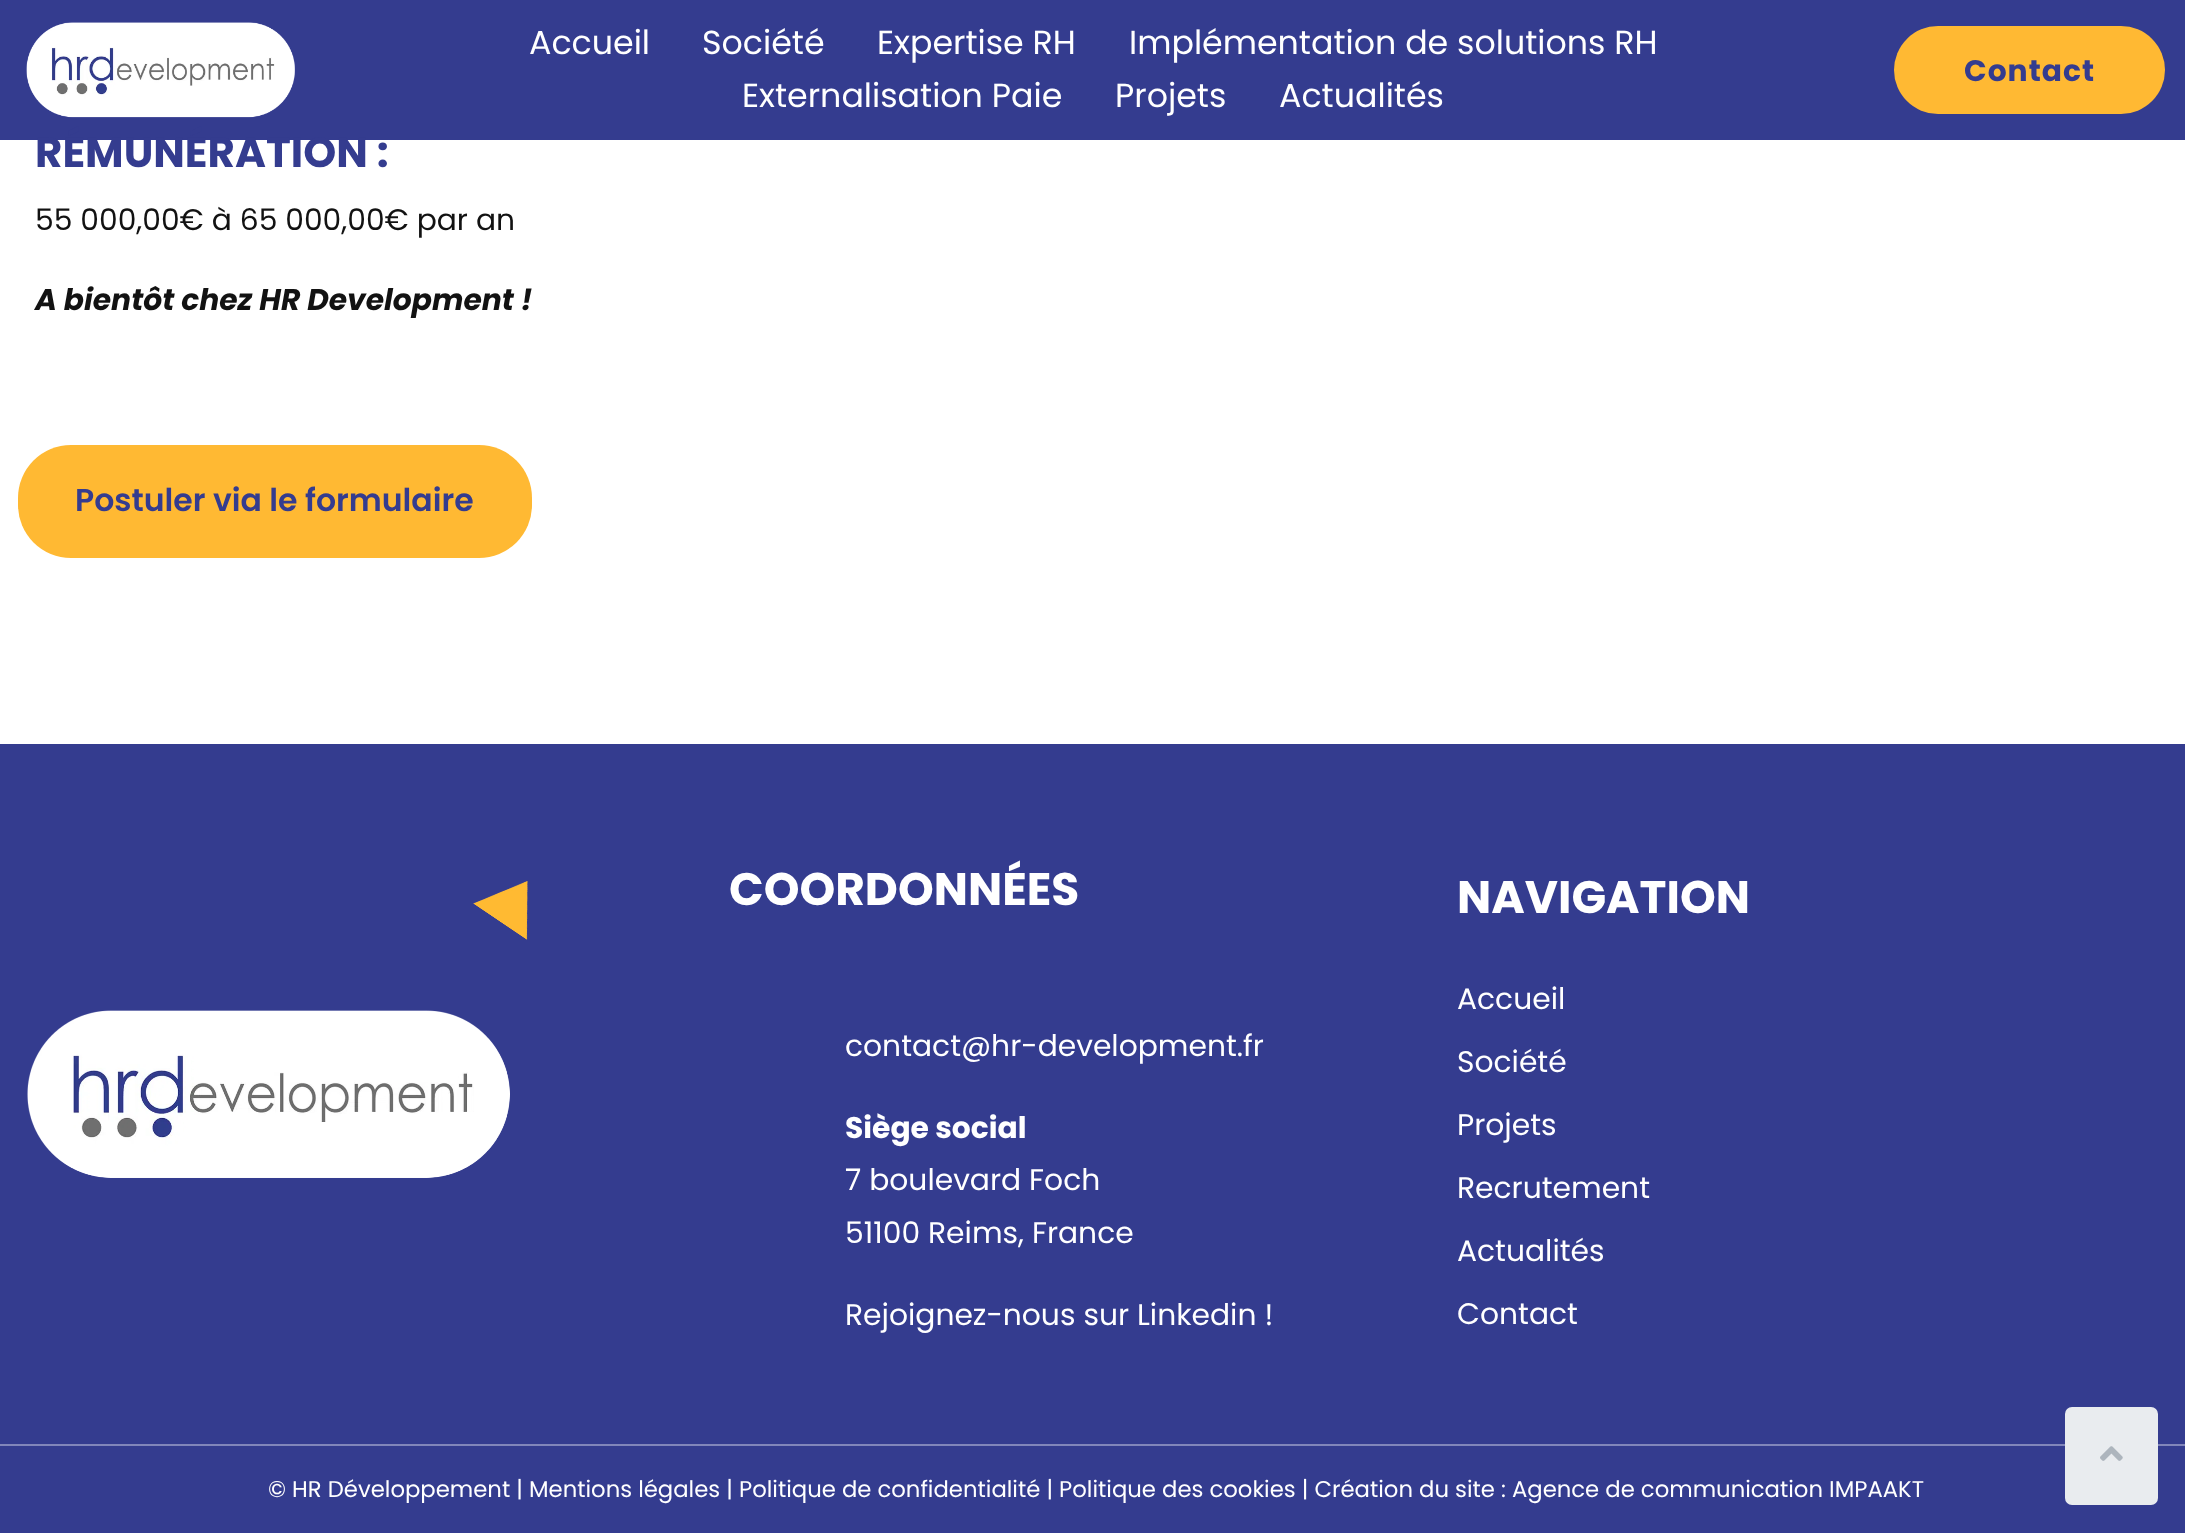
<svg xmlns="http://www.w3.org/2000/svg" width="2185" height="1533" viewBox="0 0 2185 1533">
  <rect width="100%" height="100%" fill="rgb(255,255,255)"/>
  <rect x="0" y="0" width="2185" height="140" fill="rgb(52,60,143)"/>
  <image x="26" y="22" width="269" height="96" href="pic1.png"/>
  <g font-family="Poppins" font-size="33.25" fill="rgb(255,255,255)">
    <text x="529" y="54">Accueil</text>
    <text x="702" y="54">Société</text>
    <text x="877" y="54">Expertise RH</text>
    <text x="1129" y="54">Implémentation de solutions RH</text>
    <text x="742" y="107">Externalisation Paie</text>
    <text x="1115" y="107">Projets</text>
    <text x="1279" y="107">Actualités</text>
  </g>
  <rect x="1894" y="26" width="271" height="88" rx="44" fill="rgb(255,185,51)"/>
  <text x="1964" y="81" font-family="Poppins" font-size="29.75" font-weight="bold" letter-spacing="1" fill="rgb(52,60,143)">Contact</text>
  <text x="35" y="167" font-family="Poppins" font-size="42" font-weight="bold" fill="rgb(52,60,143)">RÉMUNÉRATION :</text>
  <text x="35" y="230" font-family="Poppins" font-size="29.75" fill="rgb(18,18,18)">55 000,00€ à 65 000,00€ par an</text>
  <text x="35" y="310" font-family="Poppins" font-size="29.75" font-weight="bold" font-style="italic" fill="rgb(18,18,18)">A bientôt chez HR Development !</text>
  <rect x="18" y="445" width="514" height="113" rx="53" fill="rgb(255,185,51)"/>
  <text x="75" y="511" font-family="Poppins" font-size="31.5" font-weight="600" fill="rgb(52,60,143)">Postuler via le formulaire</text>
  <rect x="0" y="744" width="2185" height="700" fill="rgb(52,60,143)"/>
  <image x="473" y="881" width="55" height="59" href="pic2.png"/>
  <image x="27" y="1010" width="483" height="168" href="pic3.png"/>
  <text x="729" y="905" font-family="Poppins" font-size="45.5" font-weight="bold" fill="rgb(255,255,255)">COORDONNÉES</text>
  <text x="845" y="1056" font-family="Poppins" font-size="29.75" fill="rgb(255,255,255)">contact@hr-development.fr</text>
  <text x="845" y="1138" font-family="Poppins" font-size="29.75" font-weight="bold" fill="rgb(255,255,255)">Siège social</text>
  <g font-family="Poppins" font-size="29.75" fill="rgb(255,255,255)">
    <text>
      <tspan x="845" y="1190">7 boulevard Foch</tspan>
      <tspan x="845" y="1243">51100 Reims, France</tspan>
    </text>
    <text x="845" y="1325">Rejoignez-nous sur Linkedin !</text>
  </g>
  <text x="1457" y="913" font-family="Poppins" font-size="45.5" font-weight="bold" fill="rgb(255,255,255)">NAVIGATION</text>
  <g font-family="Poppins" font-size="29.75" fill="rgb(255,255,255)">
    <text x="1457" y="1009">Accueil</text>
    <text x="1457" y="1072">Société</text>
    <text x="1457" y="1135">Projets</text>
    <text x="1457" y="1198">Recrutement</text>
    <text x="1457" y="1261">Actualités</text>
    <text x="1457" y="1324">Contact</text>
  </g>
  <rect x="0" y="1446" width="2185" height="87" fill="rgb(52,60,143)"/>
  <rect x="0" y="1444" width="2185" height="2" fill="rgb(129,134,186)"/>
  <text x="268" y="1497" font-family="Poppins" font-size="22.75" fill="rgb(255,255,255)">© HR Développement | Mentions légales | Politique de confidentialité | Politique des cookies | Création du site : Agence de communication IMPAAKT</text>
  <rect x="2066" y="1408" width="91" height="96" rx="6" fill="rgb(233,236,239)" stroke="rgb(233,236,239)" stroke-width="2"/>
  <image x="2100" y="1446" width="23" height="15" href="pic4.png"/>
</svg>
